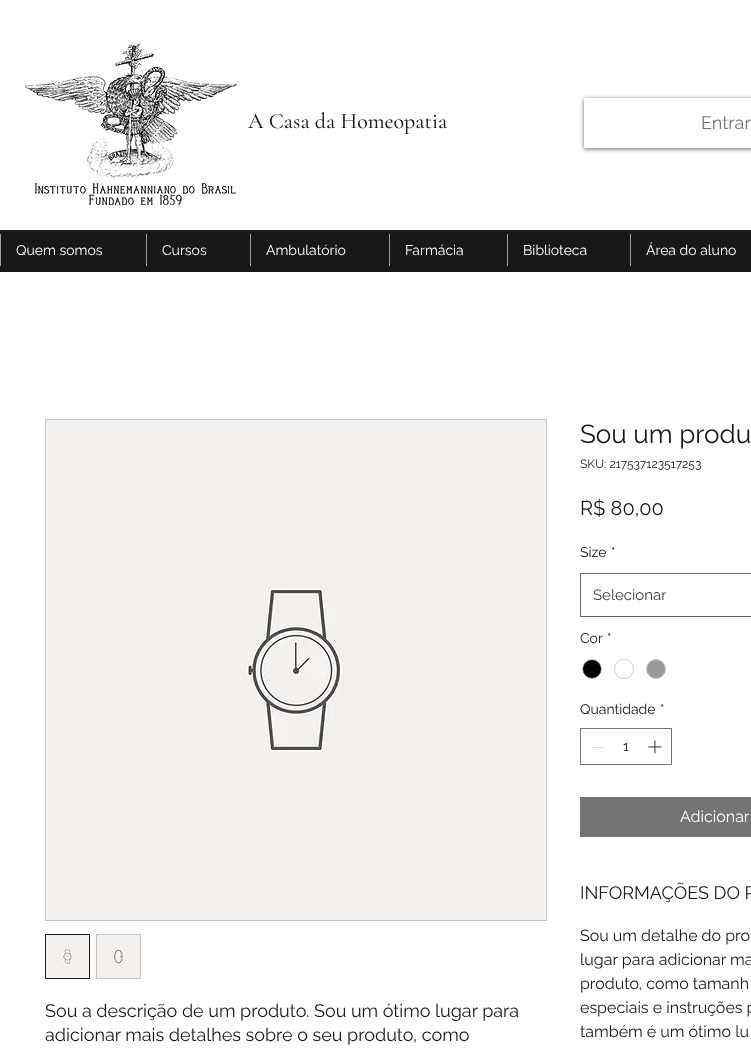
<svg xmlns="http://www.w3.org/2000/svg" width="751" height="1049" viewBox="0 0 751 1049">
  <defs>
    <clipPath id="clip1"><path d="M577 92H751V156H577ZM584 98H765V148H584Z" clip-rule="evenodd"/></clipPath>
  </defs>
  <rect width="100%" height="100%" fill="rgb(255,255,255)"/>
  <image x="25" y="43" width="212" height="162" href="pic1.png"/>
  <text x="248" y="128" font-family="Cormorant Garamond" font-size="22" font-weight="500" fill="rgb(24,24,24)">A Casa da Homeopatia</text>
  <g clip-path="url(#clip1)">
    <rect x="584" y="99" width="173" height="50" fill="rgba(0,0,0,0.6)" filter="blur(2px)"/>
  </g>
  <text x="701" y="129" font-family="Raleway" font-size="18" fill="rgb(116,116,116)">Entrar</text>
  <rect x="0" y="230" width="751" height="42" fill="rgb(24,24,24)"/>
  <rect x="0" y="234" width="1" height="32" fill="rgb(158,158,158)"/>
  <text x="16" y="255" font-family="Raleway" font-size="14" fill="rgb(255,255,255)">Quem somos</text>
  <rect x="146" y="234" width="1" height="32" fill="rgb(158,158,158)"/>
  <text x="162" y="255" font-family="Raleway" font-size="14" fill="rgb(255,255,255)">Cursos</text>
  <rect x="250" y="234" width="1" height="32" fill="rgb(158,158,158)"/>
  <text x="266" y="255" font-family="Raleway" font-size="14" fill="rgb(255,255,255)">Ambulatório</text>
  <rect x="389" y="234" width="1" height="32" fill="rgb(158,158,158)"/>
  <text x="405" y="255" font-family="Raleway" font-size="14" fill="rgb(255,255,255)">Farmácia</text>
  <rect x="507" y="234" width="1" height="32" fill="rgb(158,158,158)"/>
  <text x="523" y="255" font-family="Raleway" font-size="14" fill="rgb(255,255,255)">Biblioteca</text>
  <rect x="630" y="234" width="1" height="32" fill="rgb(158,158,158)"/>
  <text x="646" y="255" font-family="Raleway" font-size="14" fill="rgb(255,255,255)">Área do aluno</text>
  <rect x="45.5" y="419.5" width="501" height="501" fill="none" stroke="rgb(197,197,197)"/>
  <image x="46" y="420" width="500" height="500" href="pic2.png"/>
  <rect x="45.5" y="934.5" width="44" height="44" fill="none" stroke="rgb(24,24,24)"/>
  <image x="46" y="935" width="43" height="43" href="pic3.png"/>
  <rect x="96" y="934" width="45" height="45" fill="rgb(197,197,197)"/>
  <image x="97" y="935" width="43" height="43" href="pic4.png"/>
  <g font-family="Raleway" font-size="18" fill="rgb(24,24,24)">
    <text>
      <tspan x="45" y="1017">Sou a descrição de um produto. Sou um ótimo lugar para</tspan>
      <tspan x="45" y="1041">adicionar mais detalhes sobre o seu produto, como</tspan>
    </text>
  </g>
  <text x="580" y="443" font-family="Raleway" font-size="26" fill="rgb(24,24,24)">Sou um produ</text>
  <text x="580" y="468" font-family="Raleway" font-size="12" fill="rgb(24,24,24)">SKU: 217537123517253</text>
  <text x="580" y="515" font-family="Raleway" font-size="20" fill="rgb(24,24,24)">R$ 80,00</text>
  <g font-family="Raleway" font-size="14" fill="rgb(24,24,24)">
    <text x="580" y="557">Size</text>
    <text x="611" y="557">*</text>
  </g>
  <rect x="580.5" y="573.5" width="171" height="43" fill="none" stroke="rgb(102,102,102)"/>
  <text x="593" y="600" font-family="Raleway" font-size="15" fill="rgb(68,68,68)">Selecionar</text>
  <g font-family="Raleway" font-size="14" fill="rgb(24,24,24)">
    <text x="580" y="643">Cor</text>
    <text x="607" y="643">*</text>
  </g>
  <circle cx="592" cy="669" r="9.5" fill="rgb(0,0,0)" stroke="rgb(201,201,201)"/>
  <circle cx="624" cy="669" r="9.5" fill="none" stroke="rgb(201,201,201)"/>
  <circle cx="656" cy="669" r="9.5" fill="rgb(153,153,153)" stroke="rgb(201,201,201)"/>
  <g font-family="Raleway" font-size="14" fill="rgb(24,24,24)">
    <text x="580" y="714">Quantidade</text>
    <text x="660" y="714">*</text>
  </g>
  <rect x="580.5" y="728.5" width="91" height="36" fill="none" stroke="rgb(116,116,116)"/>
  <rect x="592" y="747" width="13" height="1" fill="rgb(227,227,227)"/>
  <text x="623" y="751" font-family="Raleway" font-size="14" fill="rgb(24,24,24)">1</text>
  <image x="648" y="740" width="14" height="14" href="pic5.png"/>
  <rect x="580" y="797" width="171" height="40" fill="rgb(116,116,116)"/>
  <text x="680" y="822" font-family="Raleway" font-size="16" fill="rgb(255,255,255)">Adicionar</text>
  <text x="580" y="899" font-family="Raleway" font-size="18" fill="rgb(24,24,24)">INFORMAÇÕES DO P</text>
  <g font-family="Raleway" font-size="16" fill="rgb(24,24,24)">
    <text>
      <tspan x="580" y="941">Sou um detalhe do pro</tspan>
      <tspan x="580" y="965">lugar para adicionar ma</tspan>
      <tspan x="580" y="989">produto, como tamanh</tspan>
      <tspan x="580" y="1013">especiais e instruções p</tspan>
      <tspan x="580" y="1037">também é um ótimo lu</tspan>
    </text>
  </g>
</svg>
